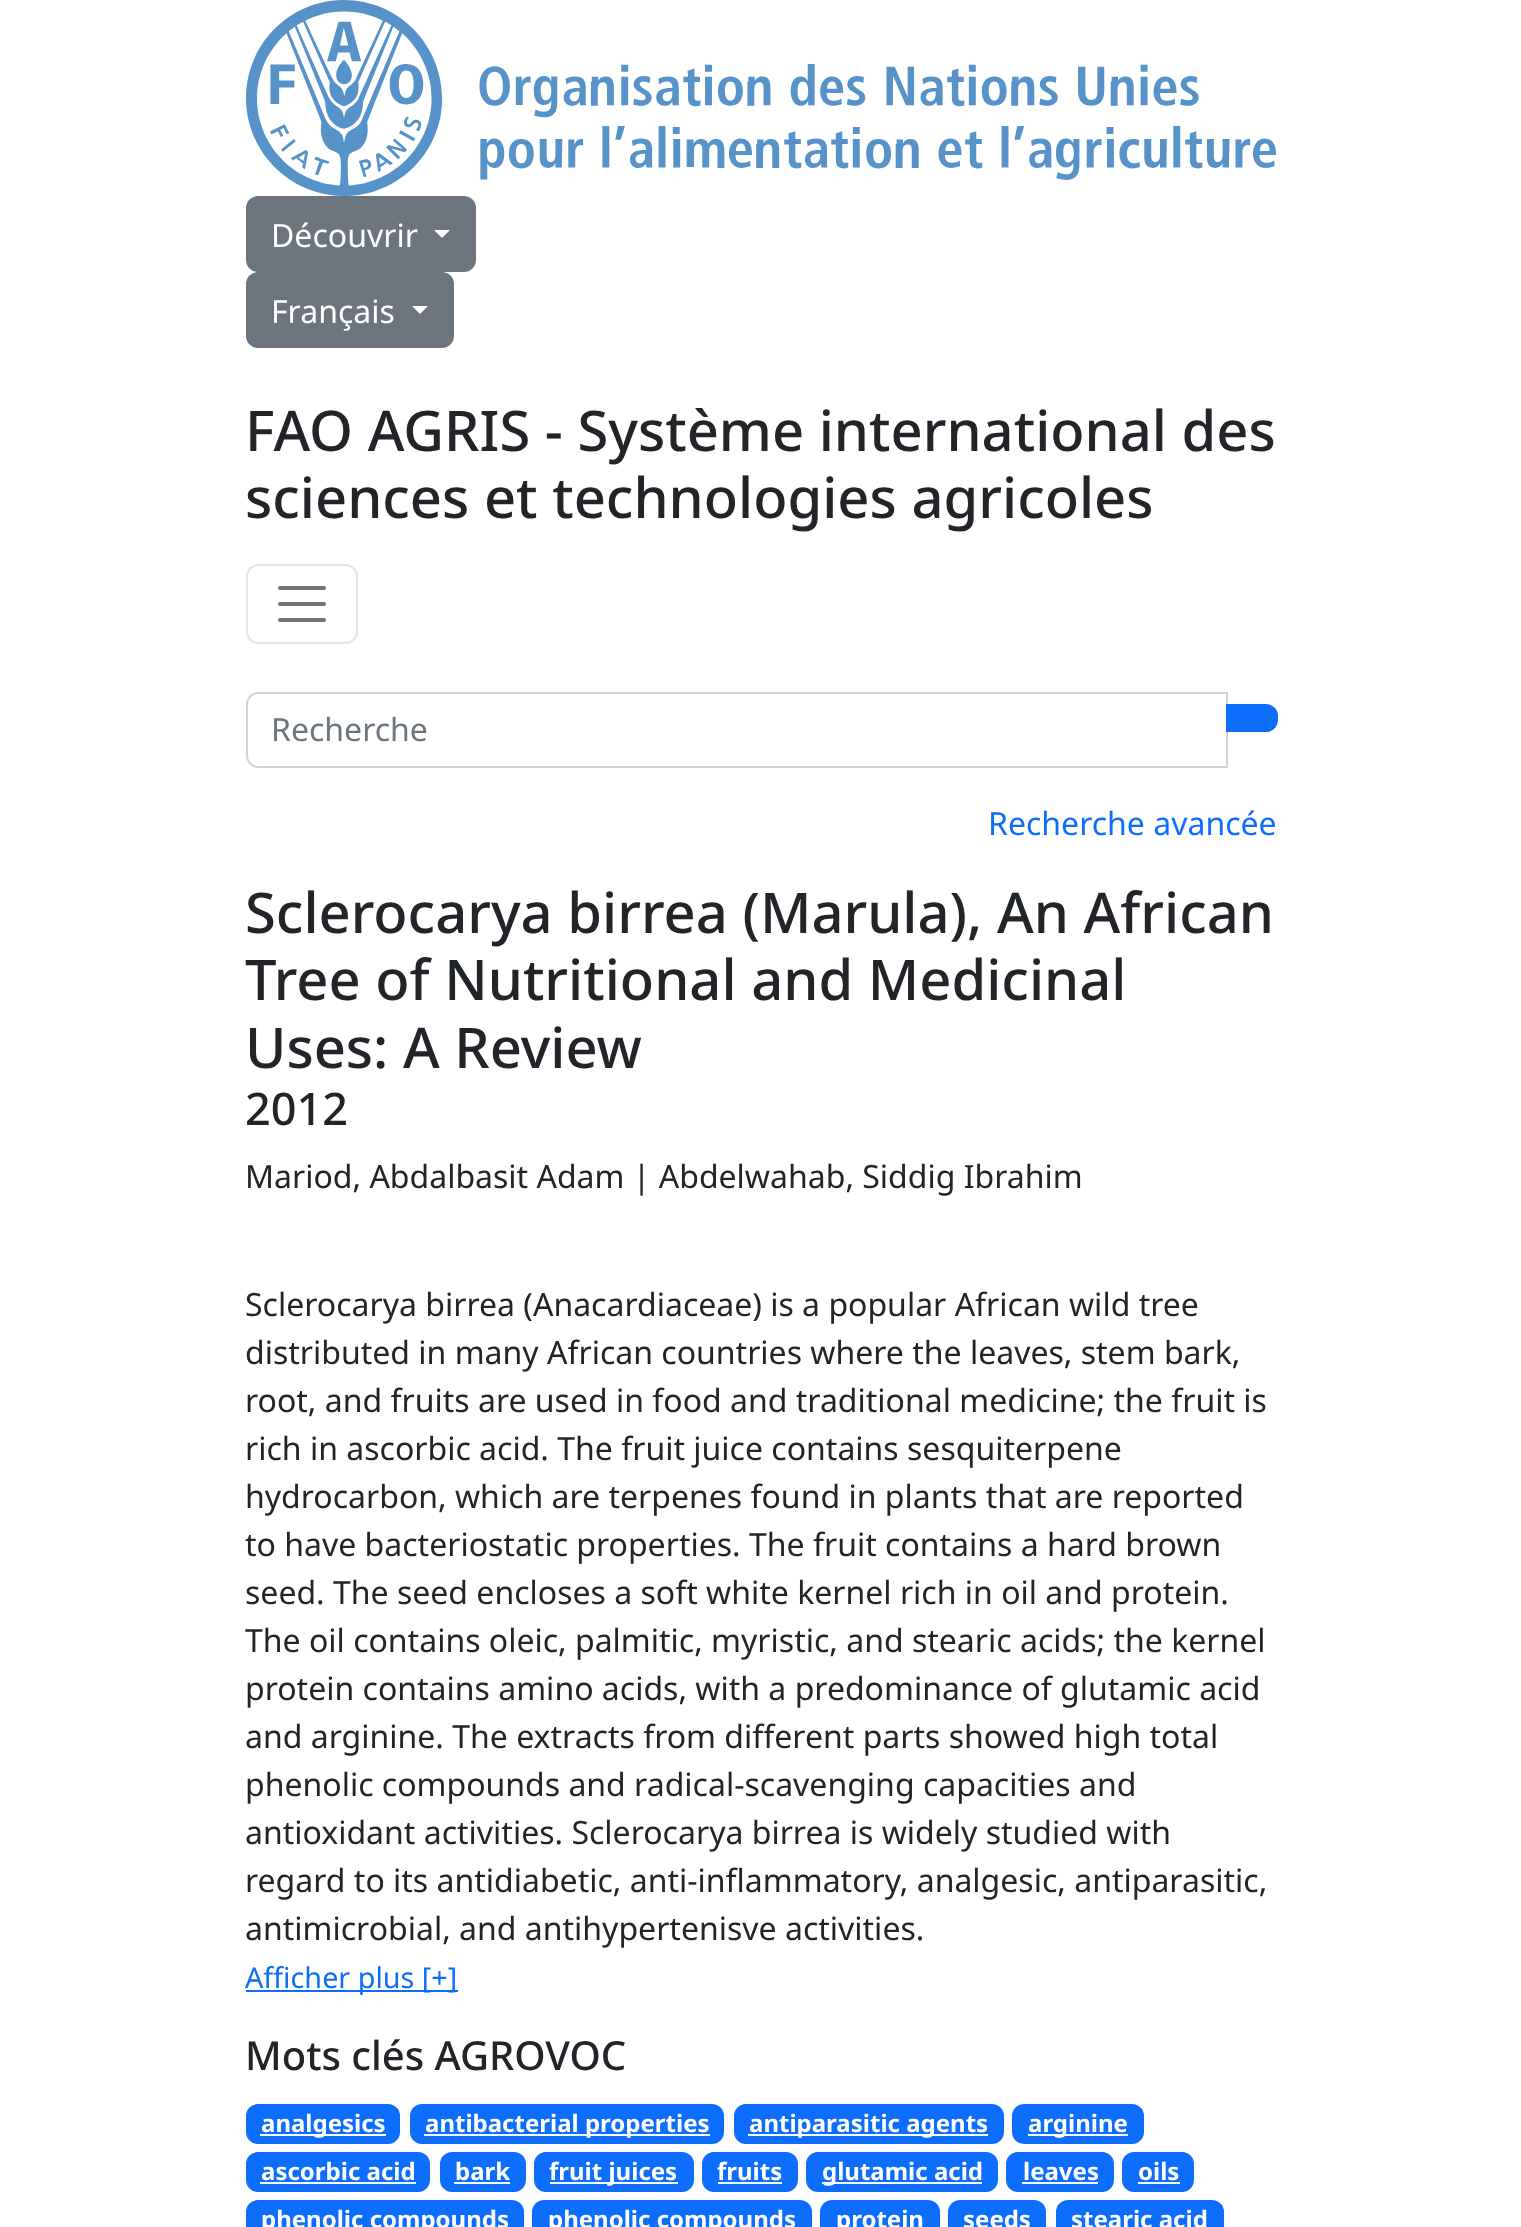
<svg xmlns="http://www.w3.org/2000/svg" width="1521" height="2227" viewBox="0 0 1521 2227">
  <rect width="100%" height="100%" fill="rgb(255,255,255)"/>
  <image x="246" y="0" width="1030" height="196" href="pic1.png"/>
  <rect x="247" y="197" width="228" height="74" rx="11" fill="rgb(108,117,125)" stroke="rgb(108,117,125)" stroke-width="2"/>
  <text x="271" y="247" font-family="Noto Sans" font-size="32" fill="rgb(255,255,255)">Découvrir</text>
  <path d="M434 230H450L442 238Z" fill="rgb(255,255,255)"/>
  <rect x="247" y="273" width="206" height="74" rx="11" fill="rgb(108,117,125)" stroke="rgb(108,117,125)" stroke-width="2"/>
  <text x="271" y="323" font-family="Noto Sans" font-size="32" fill="rgb(255,255,255)">Français</text>
  <path d="M412 306H428L420 314Z" fill="rgb(255,255,255)"/>
  <g font-family="Noto Sans" font-size="56.1" font-weight="500" fill="rgb(33,37,41)">
    <text>
      <tspan x="245" y="451">FAO AGRIS - Système international des</tspan>
      <tspan x="245" y="518">sciences et technologies agricoles</tspan>
    </text>
  </g>
  <rect x="247" y="565" width="110" height="78" rx="11" fill="none" stroke="rgb(230,230,230)" stroke-width="2"/>
  <path d="M280 588H324M280 604H324M280 620H324" fill="none" stroke="rgb(115,115,115)" stroke-width="4" stroke-linecap="round"/>
  <path d="M258 693H1227V767H258C252 767 247 762 247 756V704C247 698 252 693 258 693Z" fill="none" stroke="rgb(206,212,218)" stroke-width="2"/>
  <text x="271" y="741" font-family="Noto Sans" font-size="32" fill="rgb(108,117,125)">Recherche</text>
  <path d="M1227 705H1266C1272 705 1277 710 1277 716V720C1277 726 1272 731 1266 731H1227Z" fill="rgb(13,110,253)" stroke="rgb(13,110,253)" stroke-width="2"/>
  <text x="988" y="835" font-family="Noto Sans" font-size="32" fill="rgb(13,110,253)">Recherche avancée</text>
  <g font-family="Noto Sans" font-size="56.1" font-weight="500" fill="rgb(33,37,41)">
    <text>
      <tspan x="245" y="933">Sclerocarya birrea (Marula), An African</tspan>
      <tspan x="245" y="1000">Tree of Nutritional and Medicinal</tspan>
      <tspan x="245" y="1068">Uses: A Review</tspan>
    </text>
  </g>
  <text x="245" y="1125" font-family="Noto Sans" font-size="45" font-weight="500" fill="rgb(33,37,41)">2012</text>
  <g font-family="Noto Sans" font-size="32" fill="rgb(33,37,41)">
    <text x="245" y="1188">Mariod, Abdalbasit Adam | Abdelwahab, Siddig Ibrahim</text>
    <text>
      <tspan x="245" y="1316">Sclerocarya birrea (Anacardiaceae) is a popular African wild tree</tspan>
      <tspan x="245" y="1364">distributed in many African countries where the leaves, stem bark,</tspan>
      <tspan x="245" y="1412">root, and fruits are used in food and traditional medicine; the fruit is</tspan>
      <tspan x="245" y="1460">rich in ascorbic acid. The fruit juice contains sesquiterpene</tspan>
      <tspan x="245" y="1508">hydrocarbon, which are terpenes found in plants that are reported</tspan>
      <tspan x="245" y="1556">to have bacteriostatic properties. The fruit contains a hard brown</tspan>
      <tspan x="245" y="1604">seed. The seed encloses a soft white kernel rich in oil and protein.</tspan>
      <tspan x="245" y="1652">The oil contains oleic, palmitic, myristic, and stearic acids; the kernel</tspan>
      <tspan x="245" y="1700">protein contains amino acids, with a predominance of glutamic acid</tspan>
      <tspan x="245" y="1748">and arginine. The extracts from different parts showed high total</tspan>
      <tspan x="245" y="1796">phenolic compounds and radical-scavenging capacities and</tspan>
      <tspan x="245" y="1844">antioxidant activities. Sclerocarya birrea is widely studied with</tspan>
      <tspan x="245" y="1892">regard to its antidiabetic, anti-inflammatory, analgesic, antiparasitic,</tspan>
      <tspan x="245" y="1940">antimicrobial, and antihypertenisve activities.</tspan>
    </text>
  </g>
  <rect x="246" y="1990" width="212" height="2" fill="rgb(13,110,253)"/>
  <text x="245" y="1988" font-family="Noto Sans" font-size="28.75" fill="rgb(13,110,253)">Afficher plus [+]</text>
  <text x="245" y="2070" font-family="Noto Sans" font-size="40" font-weight="500" fill="rgb(33,37,41)">Mots clés AGROVOC</text>
  <rect x="246" y="2104" width="154" height="40" rx="12" fill="rgb(13,110,253)"/>
  <rect x="260" y="2134" width="126" height="2" fill="rgb(255,255,255)"/>
  <text x="261" y="2132" font-family="Noto Sans" font-size="24" font-weight="bold" fill="rgb(255,255,255)">analgesics</text>
  <rect x="410" y="2104" width="314" height="40" rx="12" fill="rgb(13,110,253)"/>
  <rect x="424" y="2134" width="286" height="2" fill="rgb(255,255,255)"/>
  <text x="425" y="2132" font-family="Noto Sans" font-size="24" font-weight="bold" fill="rgb(255,255,255)">antibacterial properties</text>
  <rect x="734" y="2104" width="270" height="40" rx="12" fill="rgb(13,110,253)"/>
  <rect x="748" y="2134" width="240" height="2" fill="rgb(255,255,255)"/>
  <text x="749" y="2132" font-family="Noto Sans" font-size="24" font-weight="bold" fill="rgb(255,255,255)">antiparasitic agents</text>
  <rect x="1012" y="2104" width="132" height="40" rx="12" fill="rgb(13,110,253)"/>
  <rect x="1028" y="2134" width="100" height="2" fill="rgb(255,255,255)"/>
  <text x="1028" y="2132" font-family="Noto Sans" font-size="24" font-weight="bold" fill="rgb(255,255,255)">arginine</text>
  <rect x="246" y="2152" width="184" height="40" rx="12" fill="rgb(13,110,253)"/>
  <text x="261" y="2180" font-family="Noto Sans" font-size="24" font-weight="bold" fill="rgb(255,255,255)">ascorbic acid</text>
  <rect x="260" y="2182" width="156" height="2" fill="rgb(255,255,255)"/>
  <rect x="440" y="2152" width="86" height="40" rx="12" fill="rgb(13,110,253)"/>
  <text x="455" y="2180" font-family="Noto Sans" font-size="24" font-weight="bold" fill="rgb(255,255,255)">bark</text>
  <rect x="454" y="2182" width="56" height="2" fill="rgb(255,255,255)"/>
  <rect x="534" y="2152" width="160" height="40" rx="12" fill="rgb(13,110,253)"/>
  <rect x="550" y="2182" width="128" height="2" fill="rgb(255,255,255)"/>
  <text x="549" y="2180" font-family="Noto Sans" font-size="24" font-weight="bold" fill="rgb(255,255,255)">fruit juices</text>
  <rect x="702" y="2152" width="96" height="40" rx="12" fill="rgb(13,110,253)"/>
  <text x="717" y="2180" font-family="Noto Sans" font-size="24" font-weight="bold" fill="rgb(255,255,255)">fruits</text>
  <rect x="718" y="2182" width="64" height="2" fill="rgb(255,255,255)"/>
  <rect x="806" y="2152" width="192" height="40" rx="12" fill="rgb(13,110,253)"/>
  <rect x="822" y="2182" width="160" height="2" fill="rgb(255,255,255)"/>
  <text x="822" y="2180" font-family="Noto Sans" font-size="24" font-weight="bold" fill="rgb(255,255,255)">glutamic acid</text>
  <rect x="1006" y="2152" width="108" height="40" rx="12" fill="rgb(13,110,253)"/>
  <text x="1023" y="2180" font-family="Noto Sans" font-size="24" font-weight="bold" fill="rgb(255,255,255)">leaves</text>
  <rect x="1022" y="2182" width="76" height="2" fill="rgb(255,255,255)"/>
  <rect x="1122" y="2152" width="72" height="40" rx="12" fill="rgb(13,110,253)"/>
  <text x="1138" y="2180" font-family="Noto Sans" font-size="24" font-weight="bold" fill="rgb(255,255,255)">oils</text>
  <rect x="1138" y="2182" width="42" height="2" fill="rgb(255,255,255)"/>
  <rect x="246" y="2200" width="278" height="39" rx="12" fill="rgb(13,110,253)"/>
  <text x="261" y="2228" font-family="Noto Sans" font-size="24" font-weight="bold" fill="rgb(255,255,255)">phenolic compounds</text>
  <rect x="532" y="2200" width="280" height="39" rx="12" fill="rgb(13,110,253)"/>
  <text x="548" y="2228" font-family="Noto Sans" font-size="24" font-weight="bold" fill="rgb(255,255,255)">phenolic compounds</text>
  <rect x="820" y="2200" width="120" height="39" rx="12" fill="rgb(13,110,253)"/>
  <text x="836" y="2228" font-family="Noto Sans" font-size="24" font-weight="bold" fill="rgb(255,255,255)">protein</text>
  <rect x="948" y="2200" width="98" height="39" rx="12" fill="rgb(13,110,253)"/>
  <text x="963" y="2228" font-family="Noto Sans" font-size="24" font-weight="bold" fill="rgb(255,255,255)">seeds</text>
  <rect x="1056" y="2200" width="168" height="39" rx="12" fill="rgb(13,110,253)"/>
  <text x="1071" y="2228" font-family="Noto Sans" font-size="24" font-weight="bold" fill="rgb(255,255,255)">stearic acid</text>
</svg>
